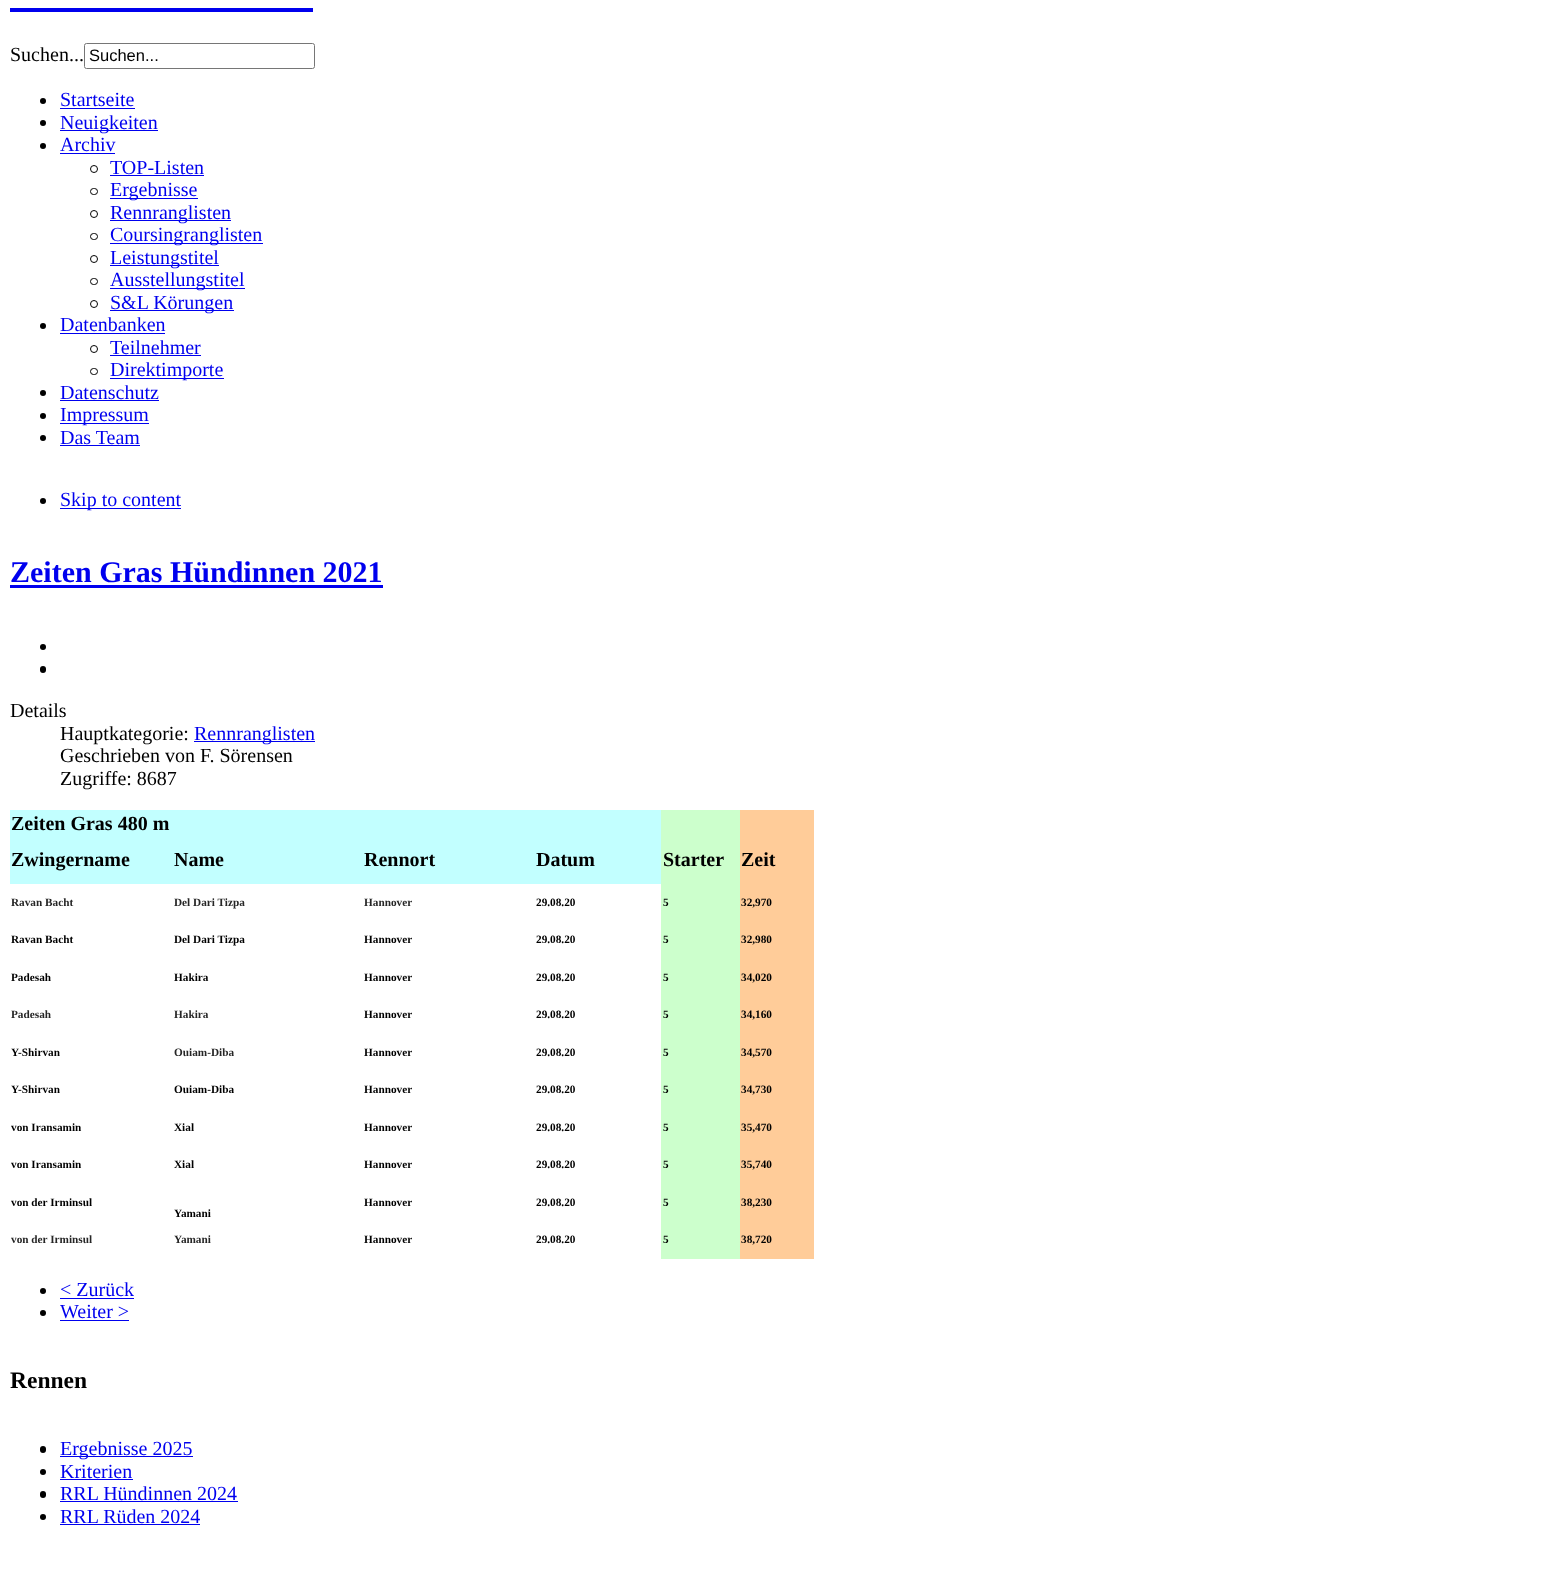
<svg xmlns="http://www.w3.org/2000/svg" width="1566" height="1584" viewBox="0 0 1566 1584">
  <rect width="100%" height="100%" fill="rgb(255,255,255)"/>
  <rect x="10" y="8" width="303" height="4" fill="rgb(0,0,238)"/>
  <text x="10" y="61" font-family="Liberation Serif" font-size="20" fill="rgb(0,0,0)">Suchen...</text>
  <rect x="84.5" y="43.5" width="230" height="25" rx="2" fill="none" stroke="rgb(118,118,118)"/>
  <text x="89" y="61" font-family="Liberation Sans" font-size="16.5" fill="rgb(0,0,0)">Suchen...</text>
  <circle cx="43" cy="101" r="3" fill="rgb(0,0,0)"/>
  <text x="60" y="106" font-family="Liberation Serif" font-size="20" fill="rgb(0,0,238)">Startseite</text>
  <rect x="60" y="108" width="75" height="1" fill="rgb(0,0,238)"/>
  <circle cx="43" cy="123" r="3" fill="rgb(0,0,0)"/>
  <rect x="60" y="130" width="98" height="1" fill="rgb(0,0,238)"/>
  <text x="60" y="129" font-family="Liberation Serif" font-size="20" fill="rgb(0,0,238)">Neuigkeiten</text>
  <circle cx="43" cy="146" r="3" fill="rgb(0,0,0)"/>
  <text x="60" y="151" font-family="Liberation Serif" font-size="20" fill="rgb(0,0,238)">Archiv</text>
  <rect x="60" y="153" width="55" height="1" fill="rgb(0,0,238)"/>
  <circle cx="94" cy="169" r="3.5" fill="none" stroke="rgb(0,0,0)"/>
  <text x="110" y="174" font-family="Liberation Serif" font-size="20" fill="rgb(0,0,238)">TOP-Listen</text>
  <rect x="110" y="175" width="94" height="1" fill="rgb(0,0,238)"/>
  <rect x="90.5" y="188.5" width="7" height="6" rx="3" fill="none" stroke="rgb(0,0,0)"/>
  <rect x="110" y="198" width="88" height="1" fill="rgb(0,0,238)"/>
  <text x="110" y="196" font-family="Liberation Serif" font-size="20" fill="rgb(0,0,238)">Ergebnisse</text>
  <circle cx="94" cy="214" r="3.5" fill="none" stroke="rgb(0,0,0)"/>
  <rect x="110" y="220" width="121" height="1" fill="rgb(0,0,238)"/>
  <text x="110" y="219" font-family="Liberation Serif" font-size="20" fill="rgb(0,0,238)">Rennranglisten</text>
  <rect x="90.5" y="233.5" width="7" height="6" rx="3" fill="none" stroke="rgb(0,0,0)"/>
  <rect x="110" y="243" width="153" height="1" fill="rgb(0,0,238)"/>
  <text x="110" y="241" font-family="Liberation Serif" font-size="20" fill="rgb(0,0,238)">Coursingranglisten</text>
  <circle cx="94" cy="259" r="3.5" fill="none" stroke="rgb(0,0,0)"/>
  <rect x="110" y="265" width="109" height="1" fill="rgb(0,0,238)"/>
  <text x="110" y="264" font-family="Liberation Serif" font-size="20" fill="rgb(0,0,238)">Leistungstitel</text>
  <rect x="90.5" y="278.5" width="7" height="6" rx="3" fill="none" stroke="rgb(0,0,0)"/>
  <rect x="110" y="288" width="135" height="1" fill="rgb(0,0,238)"/>
  <text x="110" y="286" font-family="Liberation Serif" font-size="20" fill="rgb(0,0,238)">Ausstellungstitel</text>
  <circle cx="94" cy="304" r="3.5" fill="none" stroke="rgb(0,0,0)"/>
  <rect x="110" y="310" width="124" height="1" fill="rgb(0,0,238)"/>
  <text x="110" y="309" font-family="Liberation Serif" font-size="20" fill="rgb(0,0,238)">S&amp;L Körungen</text>
  <circle cx="43" cy="326" r="3" fill="rgb(0,0,0)"/>
  <text x="60" y="331" font-family="Liberation Serif" font-size="20" fill="rgb(0,0,238)">Datenbanken</text>
  <rect x="60" y="333" width="105" height="1" fill="rgb(0,0,238)"/>
  <circle cx="94" cy="349" r="3.5" fill="none" stroke="rgb(0,0,0)"/>
  <text x="110" y="354" font-family="Liberation Serif" font-size="20" fill="rgb(0,0,238)">Teilnehmer</text>
  <rect x="110" y="355" width="91" height="1" fill="rgb(0,0,238)"/>
  <rect x="90.5" y="368.5" width="7" height="6" rx="3" fill="none" stroke="rgb(0,0,0)"/>
  <rect x="110" y="378" width="114" height="1" fill="rgb(0,0,238)"/>
  <text x="110" y="376" font-family="Liberation Serif" font-size="20" fill="rgb(0,0,238)">Direktimporte</text>
  <circle cx="43" cy="393" r="3" fill="rgb(0,0,0)"/>
  <text x="60" y="399" font-family="Liberation Serif" font-size="20" fill="rgb(0,0,238)">Datenschutz</text>
  <rect x="60" y="400" width="99" height="1" fill="rgb(0,0,238)"/>
  <circle cx="43" cy="416" r="3" fill="rgb(0,0,0)"/>
  <rect x="60" y="423" width="89" height="1" fill="rgb(0,0,238)"/>
  <text x="60" y="421" font-family="Liberation Serif" font-size="20" fill="rgb(0,0,238)">Impressum</text>
  <circle cx="43" cy="438" r="3" fill="rgb(0,0,0)"/>
  <text x="60" y="444" font-family="Liberation Serif" font-size="20" fill="rgb(0,0,238)">Das Team</text>
  <rect x="60" y="445" width="80" height="1" fill="rgb(0,0,238)"/>
  <circle cx="43" cy="501" r="3" fill="rgb(0,0,0)"/>
  <rect x="60" y="508" width="121" height="1" fill="rgb(0,0,238)"/>
  <text x="60" y="506" font-family="Liberation Serif" font-size="20" fill="rgb(0,0,238)">Skip to content</text>
  <text x="10" y="582" font-family="Liberation Serif" font-size="30" font-weight="bold" fill="rgb(0,0,238)">Zeiten Gras Hündinnen 2021</text>
  <rect x="10" y="585" width="373" height="3" fill="rgb(0,0,238)"/>
  <circle cx="43" cy="647" r="3" fill="rgb(0,0,0)"/>
  <rect x="40" y="666" width="6" height="7" rx="3" fill="rgb(0,0,0)"/>
  <g font-family="Liberation Serif" font-size="20" fill="rgb(0,0,0)">
    <text x="10" y="717">Details</text>
    <text x="60" y="740">Hauptkategorie:</text>
  </g>
  <rect x="194" y="741" width="121" height="1" fill="rgb(0,0,238)"/>
  <text x="194" y="740" font-family="Liberation Serif" font-size="20" fill="rgb(0,0,238)">Rennranglisten</text>
  <g font-family="Liberation Serif" font-size="20" fill="rgb(0,0,0)">
    <text>
      <tspan x="60" y="762">Geschrieben von F. Sörensen</tspan>
      <tspan x="60" y="785">Zugriffe: 8687</tspan>
    </text>
  </g>
  <rect x="10" y="810" width="651" height="28" fill="rgb(194,255,255)"/>
  <text x="11" y="830" font-family="Liberation Serif" font-size="20" font-weight="bold" fill="rgb(0,0,0)">Zeiten Gras 480 m</text>
  <rect x="661" y="810" width="79" height="449" fill="rgb(204,255,204)"/>
  <rect x="740" y="810" width="74" height="449" fill="rgb(255,204,153)"/>
  <rect x="10" y="838" width="651" height="46" fill="rgb(194,255,255)"/>
  <g font-family="Liberation Serif" font-size="20" font-weight="bold" fill="rgb(0,0,0)">
    <text x="11" y="866">Zwingername</text>
    <text x="174" y="866">Name</text>
    <text x="364" y="866">Rennort</text>
    <text x="536" y="866">Datum</text>
    <text x="663" y="866">Starter</text>
    <text x="741" y="866">Zeit</text>
  </g>
  <g font-family="Liberation Serif" font-size="11.25" font-weight="bold" fill="rgb(38,38,38)">
    <text x="11" y="906">Ravan Bacht</text>
    <text x="174" y="906">Del Dari Tizpa</text>
    <text x="364" y="906">Hannover</text>
  </g>
  <g font-family="Liberation Serif" font-size="11.25" font-weight="bold" fill="rgb(0,0,0)">
    <text x="536" y="906">29.08.20</text>
    <text x="663" y="906">5</text>
    <text x="741" y="906">32,970</text>
    <text x="11" y="943">Ravan Bacht</text>
    <text x="174" y="943">Del Dari Tizpa</text>
    <text x="364" y="943">Hannover</text>
    <text x="536" y="943">29.08.20</text>
    <text x="663" y="943">5</text>
    <text x="741" y="943">32,980</text>
    <text x="11" y="981">Padesah</text>
    <text x="174" y="981">Hakira</text>
    <text x="364" y="981">Hannover</text>
    <text x="536" y="981">29.08.20</text>
    <text x="663" y="981">5</text>
    <text x="741" y="981">34,020</text>
  </g>
  <g font-family="Liberation Serif" font-size="11.25" font-weight="bold" fill="rgb(38,38,38)">
    <text x="11" y="1018">Padesah</text>
    <text x="174" y="1018">Hakira</text>
  </g>
  <g font-family="Liberation Serif" font-size="11.25" font-weight="bold" fill="rgb(0,0,0)">
    <text x="364" y="1018">Hannover</text>
    <text x="536" y="1018">29.08.20</text>
    <text x="663" y="1018">5</text>
    <text x="741" y="1018">34,160</text>
    <text x="11" y="1056">Y-Shirvan</text>
  </g>
  <text x="174" y="1056" font-family="Liberation Serif" font-size="11.25" font-weight="bold" fill="rgb(38,38,38)">Ouiam-Diba</text>
  <g font-family="Liberation Serif" font-size="11.25" font-weight="bold" fill="rgb(0,0,0)">
    <text x="364" y="1056">Hannover</text>
    <text x="536" y="1056">29.08.20</text>
    <text x="663" y="1056">5</text>
    <text x="741" y="1056">34,570</text>
    <text x="11" y="1093">Y-Shirvan</text>
    <text x="174" y="1093">Ouiam-Diba</text>
    <text x="364" y="1093">Hannover</text>
    <text x="536" y="1093">29.08.20</text>
    <text x="663" y="1093">5</text>
    <text x="741" y="1093">34,730</text>
    <text x="11" y="1131">von Iransamin</text>
    <text x="174" y="1131">Xial</text>
    <text x="364" y="1131">Hannover</text>
    <text x="536" y="1131">29.08.20</text>
    <text x="663" y="1131">5</text>
    <text x="741" y="1131">35,470</text>
    <text x="11" y="1168">von Iransamin</text>
    <text x="174" y="1168">Xial</text>
    <text x="364" y="1168">Hannover</text>
    <text x="536" y="1168">29.08.20</text>
    <text x="663" y="1168">5</text>
    <text x="741" y="1168">35,740</text>
    <text x="11" y="1206">von der Irminsul</text>
    <text x="364" y="1206">Hannover</text>
    <text x="536" y="1206">29.08.20</text>
    <text x="663" y="1206">5</text>
    <text x="741" y="1206">38,230</text>
    <text x="174" y="1217">Yamani</text>
  </g>
  <g font-family="Liberation Serif" font-size="11.25" font-weight="bold" fill="rgb(38,38,38)">
    <text x="11" y="1243">von der Irminsul</text>
    <text x="174" y="1243">Yamani</text>
  </g>
  <g font-family="Liberation Serif" font-size="11.25" font-weight="bold" fill="rgb(0,0,0)">
    <text x="364" y="1243">Hannover</text>
    <text x="536" y="1243">29.08.20</text>
    <text x="663" y="1243">5</text>
    <text x="741" y="1243">38,720</text>
  </g>
  <circle cx="43" cy="1291" r="3" fill="rgb(0,0,0)"/>
  <text x="60" y="1296" font-family="Liberation Serif" font-size="20" fill="rgb(0,0,238)">&lt; Zurück</text>
  <rect x="60" y="1298" width="74" height="1" fill="rgb(0,0,238)"/>
  <circle cx="43" cy="1313" r="3" fill="rgb(0,0,0)"/>
  <text x="60" y="1318" font-family="Liberation Serif" font-size="20" fill="rgb(0,0,238)">Weiter &gt;</text>
  <rect x="60" y="1320" width="69" height="1" fill="rgb(0,0,238)"/>
  <text x="10" y="1388" font-family="Liberation Serif" font-size="23.5" font-weight="bold" fill="rgb(0,0,0)">Rennen</text>
  <rect x="40" y="1446" width="6" height="7" rx="3" fill="rgb(0,0,0)"/>
  <rect x="60" y="1456" width="133" height="1" fill="rgb(0,0,238)"/>
  <text x="60" y="1455" font-family="Liberation Serif" font-size="20" fill="rgb(0,0,238)">Ergebnisse 2025</text>
  <circle cx="43" cy="1472" r="3" fill="rgb(0,0,0)"/>
  <text x="60" y="1478" font-family="Liberation Serif" font-size="20" fill="rgb(0,0,238)">Kriterien</text>
  <rect x="60" y="1479" width="73" height="1" fill="rgb(0,0,238)"/>
  <rect x="40" y="1491" width="6" height="7" rx="3" fill="rgb(0,0,0)"/>
  <text x="60" y="1500" font-family="Liberation Serif" font-size="20" fill="rgb(0,0,238)">RRL Hündinnen 2024</text>
  <rect x="60" y="1501" width="178" height="1" fill="rgb(0,0,238)"/>
  <circle cx="43" cy="1517" r="3" fill="rgb(0,0,0)"/>
  <text x="60" y="1523" font-family="Liberation Serif" font-size="20" fill="rgb(0,0,238)">RRL Rüden 2024</text>
  <rect x="60" y="1524" width="140" height="1" fill="rgb(0,0,238)"/>
</svg>
